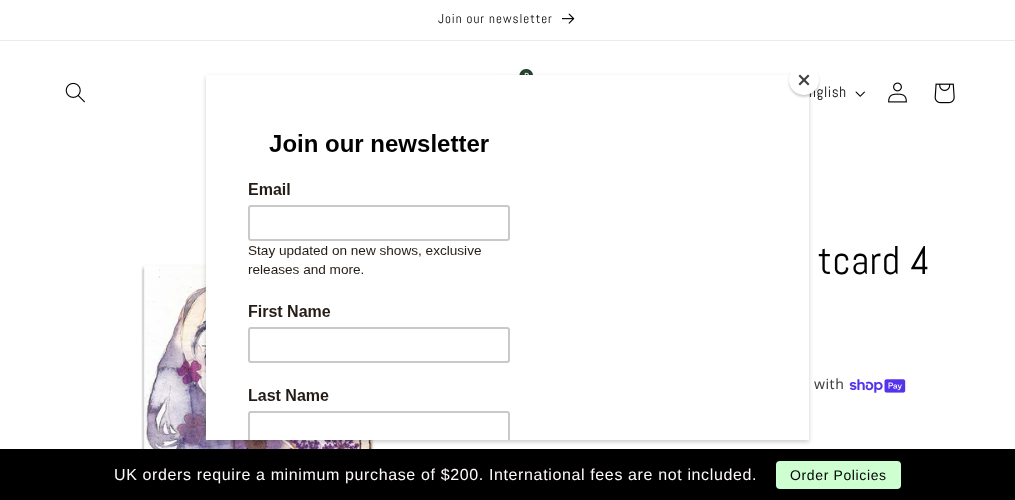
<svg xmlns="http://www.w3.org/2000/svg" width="1015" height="500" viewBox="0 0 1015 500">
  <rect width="100%" height="100%" fill="rgb(255,255,255)"/>
  <rect x="0" y="40" width="1015" height="1" fill="rgb(235,235,235)"/>
  <text x="438" y="23" font-family="Abel" font-size="13" letter-spacing="1" fill="rgb(0,0,0)">Join our newsletter</text>
  <image x="562" y="13" width="13" height="11" href="pic1.png"/>
  <image x="483" y="69" width="50" height="6" href="pic3.png"/>
  <image x="141" y="263" width="234" height="186" href="pic8.png"/>
  <rect x="206" y="77" width="603" height="365" fill="rgba(0,0,0,0.2)" filter="blur(2px)"/>
  <image x="206" y="75" width="603" height="365" href="pic2.png"/>
  <rect x="789" y="67" width="30" height="30" rx="15" fill="rgba(0,0,0,0.2)" filter="blur(1px)"/>
  <text x="809" y="97" font-family="Abel" font-size="15" letter-spacing="0.63" fill="rgb(0,0,0)">nglish</text>
  <circle cx="804" cy="80" r="15" fill="rgb(255,255,255)"/>
  <path d="M808 74.5L809.5 76L800 85.5L798.5 84Z" fill="rgb(65,65,65)"/>
  <path d="M798.5 76L800 74.5L809.5 84L808 85.5Z" fill="rgb(65,65,65)"/>
  <image x="65" y="82" width="20" height="21" href="pic4.png"/>
  <image x="855" y="91" width="10" height="6" href="pic5.png"/>
  <image x="888" y="82" width="19" height="21" href="pic6.png"/>
  <image x="934" y="83" width="21" height="21" href="pic7.png"/>
  <text x="818" y="274" font-family="Abel" font-size="40" letter-spacing="0.5" fill="rgb(0,0,0)">tcard 4</text>
  <text x="814" y="389" font-family="Noto Sans" font-size="14" letter-spacing="0.5" fill="rgb(64,64,64)">with</text>
  <image x="849" y="379" width="57" height="14" href="pic9.png"/>
  <rect x="0" y="449" width="1015" height="51" fill="rgb(0,0,0)"/>
  <text x="114" y="480" font-family="Liberation Sans" font-size="16" letter-spacing="0.63" fill="rgb(255,250,250)">UK orders require a minimum purchase of $200. International fees are not included.</text>
  <rect x="776" y="461" width="125" height="28" rx="4" fill="rgb(206,255,209)"/>
  <text x="790" y="480" font-family="Liberation Sans" font-size="14" letter-spacing="0.63" fill="rgb(0,0,0)">Order Policies</text>
</svg>
